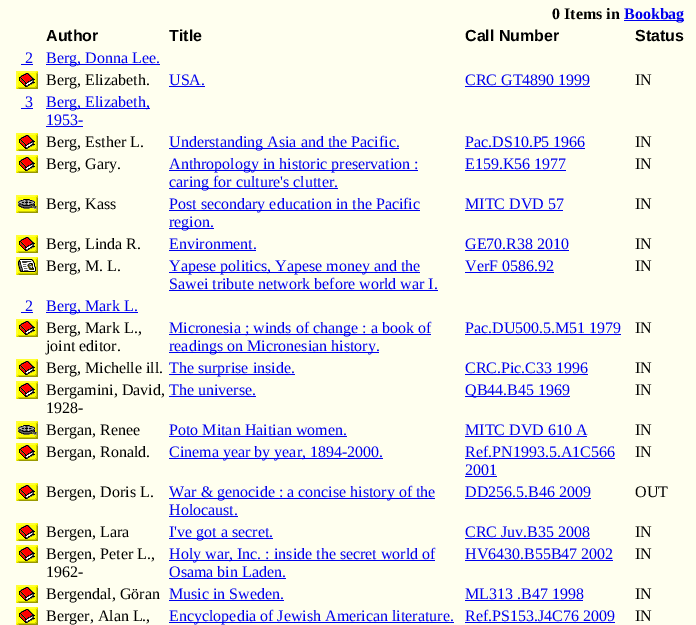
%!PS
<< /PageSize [696 625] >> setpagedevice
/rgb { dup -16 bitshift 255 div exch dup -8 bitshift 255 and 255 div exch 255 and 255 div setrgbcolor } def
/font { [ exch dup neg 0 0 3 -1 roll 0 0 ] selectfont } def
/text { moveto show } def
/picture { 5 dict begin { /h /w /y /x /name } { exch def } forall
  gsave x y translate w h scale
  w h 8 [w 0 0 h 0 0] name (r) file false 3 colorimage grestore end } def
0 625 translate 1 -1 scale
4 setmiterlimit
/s1 { /LiberationSerif-Bold 16 font 16#000000 rgb } def
/s2 { /LiberationSerif-Bold 16 font 16#0000EE rgb } def
/s3 { /LiberationSans-Bold 16 font 16#000000 rgb } def
/s4 { /LiberationSerif-Regular 16 font 16#0000EE rgb } def
/s5 { /LiberationSerif-Regular 16 font 16#000000 rgb } def
16#FFFFEF rgb
0 0 696 625 rectfill
s1
(0 Items in) 552 19 text
16#0000EE rgb
624 20 60 1 rectfill
(Bookbag) 624 19 text
s3
(Author) 46 41 text
(Title) 169 41 text
(Call Number) 465 41 text
(Status) 635 41 text
s4
(2) 25 63 text
21 64 12 1 rectfill
46 64 114 1 rectfill
(Berg, Donna Lee.) 46 63 text
(pic1.raw) 16 71 22 18 picture
s5
(Berg, Elizabeth.) 46 85 text
s4
(USA.) 169 85 text
169 86 36 1 rectfill
(CRC GT4890 1999) 465 85 text
465 86 125 1 rectfill
s5
(IN) 635 85 text
s4
(3) 25 107 text
21 108 12 1 rectfill
46 108 104 1 rectfill
(Berg, Elizabeth,) 46 107 text
(1953-) 46 125 text
46 126 37 1 rectfill
(pic1.raw) 16 133 22 18 picture
s5
(Berg, Esther L.) 46 147 text
16#0000EE rgb
169 148 230 1 rectfill
(Understanding Asia and the Pacific.) 169 147 text
(Pac.DS10.P5 1966) 465 147 text
465 148 120 1 rectfill
s5
(IN) 635 147 text
(pic1.raw) 16 155 22 18 picture
(Berg, Gary.) 46 169 text
16#0000EE rgb
169 170 249 1 rectfill
(Anthropology in historic preservation :) 169 169 text
169 188 169 1 rectfill
(caring for culture's clutter.) 169 187 text
(E159.K56 1977) 465 169 text
465 170 101 1 rectfill
s5
(IN) 635 169 text
(pic2.raw) 16 195 22 18 picture
(Berg, Kass) 46 209 text
16#0000EE rgb
169 210 251 1 rectfill
(Post secondary education in the Pacific) 169 209 text
169 228 45 1 rectfill
(region.) 169 227 text
(MITC DVD 57) 465 209 text
465 210 98 1 rectfill
s5
(IN) 635 209 text
(pic1.raw) 16 235 22 18 picture
(Berg, Linda R.) 46 249 text
s4
(Environment.) 169 249 text
169 250 87 1 rectfill
(GE70.R38 2010) 465 249 text
465 250 104 1 rectfill
s5
(IN) 635 249 text
(pic3.raw) 16 257 22 18 picture
(Berg, M. L.) 46 271 text
16#0000EE rgb
169 272 251 1 rectfill
(Yapese politics, Yapese money and the) 169 271 text
(Sawei tribute network before world war I.) 169 289 text
169 290 269 1 rectfill
(VerF 0586.92) 465 271 text
465 272 89 1 rectfill
s5
(IN) 635 271 text
s4
(2) 25 311 text
21 312 12 1 rectfill
46 312 92 1 rectfill
(Berg, Mark L.) 46 311 text
(pic1.raw) 16 319 22 18 picture
s5
(Berg, Mark L.,) 46 333 text
(joint editor.) 46 351 text
16#0000EE rgb
169 334 262 1 rectfill
(Micronesia ; winds of change : a book of) 169 333 text
169 352 210 1 rectfill
(readings on Micronesian history.) 169 351 text
(Pac.DU500.5.M51 1979) 465 333 text
465 334 156 1 rectfill
s5
(IN) 635 333 text
(pic1.raw) 16 359 22 18 picture
(Berg, Michelle ill.) 46 373 text
16#0000EE rgb
169 374 126 1 rectfill
(The surprise inside.) 169 373 text
(CRC.Pic.C33 1996) 465 373 text
465 374 123 1 rectfill
s5
(IN) 635 373 text
(pic1.raw) 16 381 22 18 picture
(Bergamini, David,) 46 395 text
(1928-) 46 413 text
s4
(The universe.) 169 395 text
169 396 87 1 rectfill
465 396 105 1 rectfill
(QB44.B45 1969) 465 395 text
s5
(IN) 635 395 text
(pic2.raw) 16 421 22 18 picture
(Bergan, Renee) 46 435 text
s4
(Poto Mitan Haitian women.) 169 435 text
169 436 178 1 rectfill
(MITC DVD 610 A) 465 435 text
465 436 122 1 rectfill
s5
(IN) 635 435 text
(pic1.raw) 16 443 22 18 picture
(Bergan, Ronald.) 46 457 text
16#0000EE rgb
169 458 214 1 rectfill
(Cinema year by year, 1894-2000.) 169 457 text
(Ref.PN1993.5.A1C566) 465 457 text
465 458 150 1 rectfill
(2001) 465 475 text
465 476 32 1 rectfill
s5
(IN) 635 457 text
(pic1.raw) 16 483 22 18 picture
(Bergen, Doris L.) 46 497 text
16#0000EE rgb
169 498 266 1 rectfill
(War & genocide : a concise history of the) 169 497 text
(Holocaust.) 169 515 text
169 516 69 1 rectfill
(DD256.5.B46 2009) 465 497 text
465 498 126 1 rectfill
s5
(OUT) 635 497 text
(pic1.raw) 16 523 22 18 picture
(Bergen, Lara) 46 537 text
16#0000EE rgb
169 538 104 1 rectfill
(I've got a secret.) 169 537 text
(CRC Juv.B35 2008) 465 537 text
465 538 125 1 rectfill
s5
(IN) 635 537 text
(pic1.raw) 16 545 22 18 picture
(Bergen, Peter L.,) 46 559 text
(1962-) 46 577 text
16#0000EE rgb
169 560 266 1 rectfill
(Holy war, Inc. : inside the secret world of) 169 559 text
(Osama bin Laden.) 169 577 text
169 578 117 1 rectfill
(HV6430.B55B47 2002) 465 559 text
465 560 148 1 rectfill
s5
(IN) 635 559 text
(pic1.raw) 16 585 22 18 picture
(Bergendal, Göran) 46 599 text
s4
(Music in Sweden.) 169 599 text
169 600 115 1 rectfill
(ML313 .B47 1998) 465 599 text
465 600 118 1 rectfill
s5
(IN) 635 599 text
(pic1.raw) 16 607 22 18 picture
(Berger, Alan L.,) 46 621 text
16#0000EE rgb
169 622 285 1 rectfill
(Encyclopedia of Jewish American literature.) 169 621 text
(Ref.PS153.J4C76 2009) 465 621 text
465 622 150 1 rectfill
s5
(IN) 635 621 text
showpage
